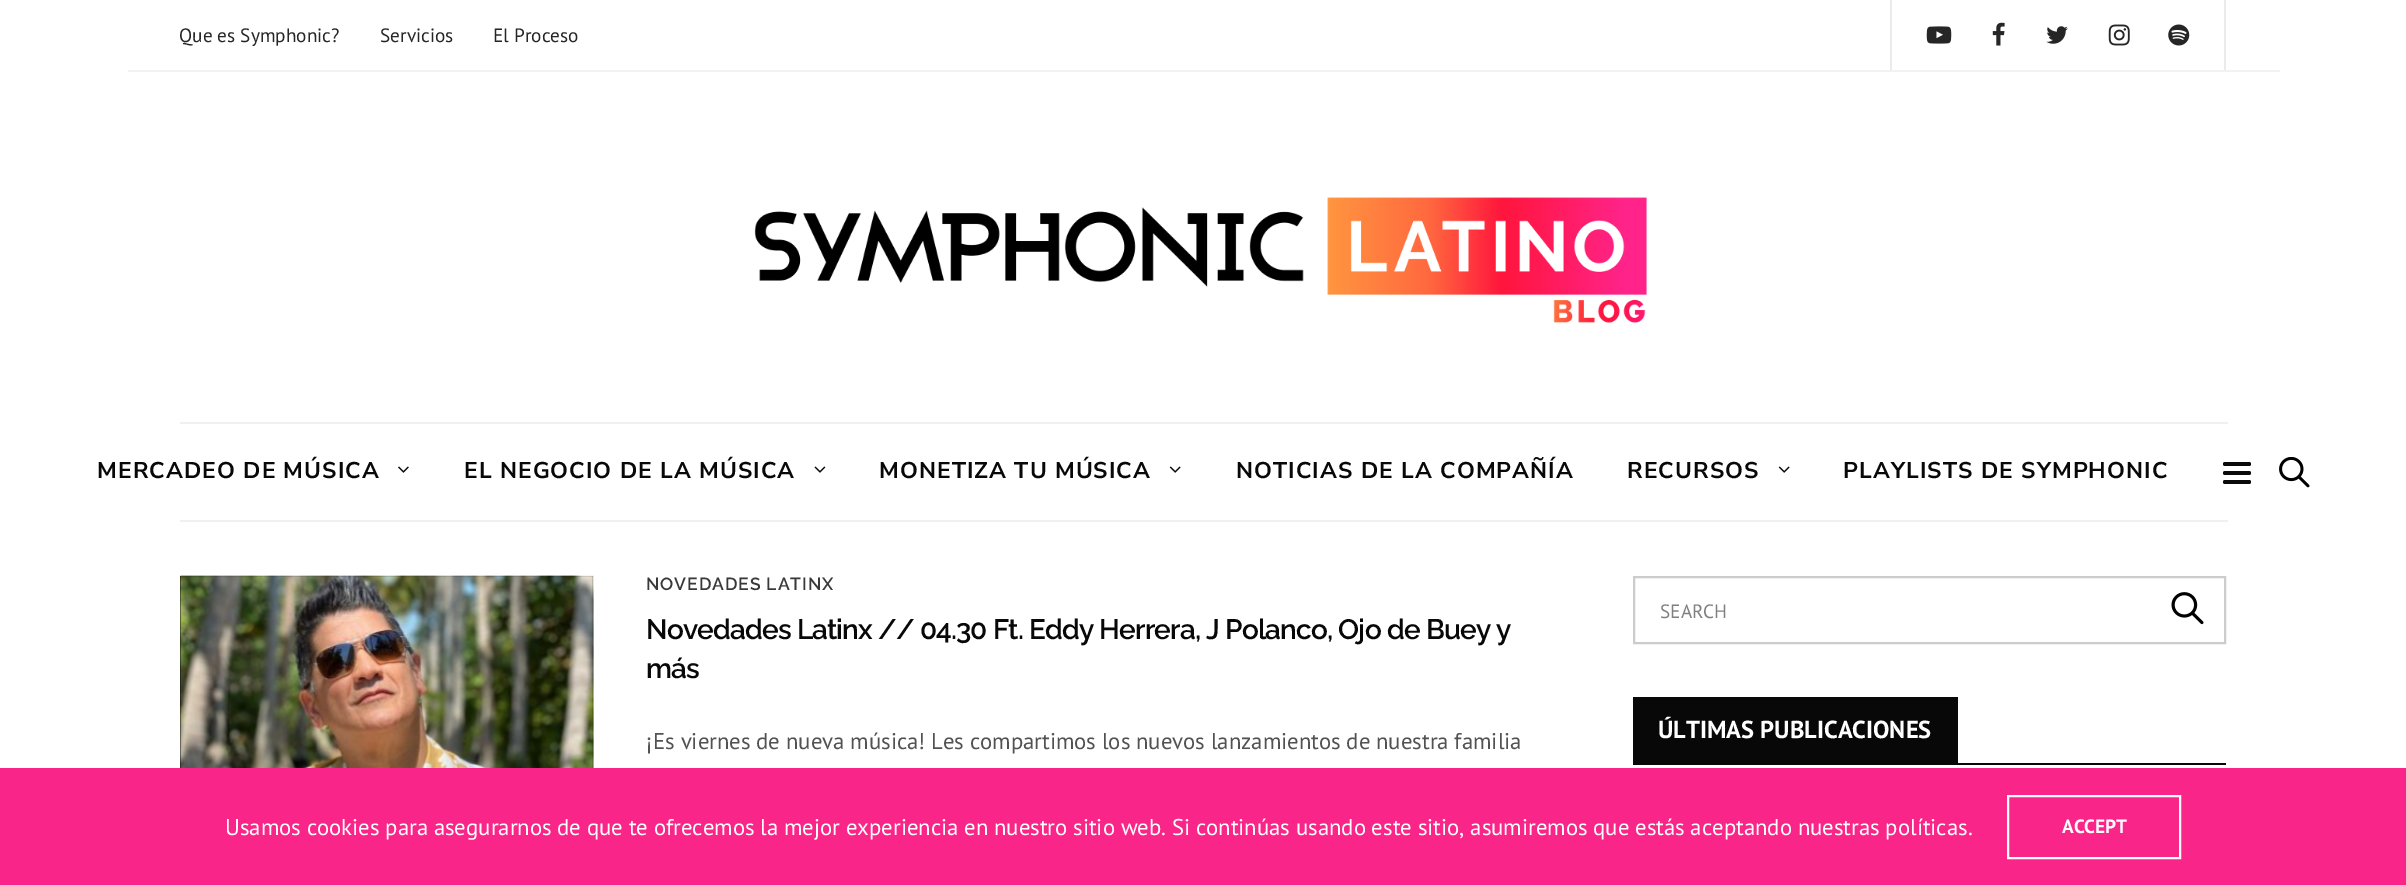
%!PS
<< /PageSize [2406 885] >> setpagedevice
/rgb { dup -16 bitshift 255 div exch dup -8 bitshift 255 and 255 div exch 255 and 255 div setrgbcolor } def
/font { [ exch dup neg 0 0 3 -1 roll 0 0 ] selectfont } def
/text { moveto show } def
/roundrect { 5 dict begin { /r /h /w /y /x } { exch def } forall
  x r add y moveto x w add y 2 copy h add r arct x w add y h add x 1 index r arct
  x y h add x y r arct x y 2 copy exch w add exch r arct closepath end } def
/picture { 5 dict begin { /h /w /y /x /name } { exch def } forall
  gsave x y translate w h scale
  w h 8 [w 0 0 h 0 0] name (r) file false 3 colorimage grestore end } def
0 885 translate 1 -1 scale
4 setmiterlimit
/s1 { /PTSans-Regular 19.25 font 16#262626 rgb } def
/s2 { /PTSans-Regular 19.25 font 16#808080 rgb } def
/s3 { /PTSans-Bold 24.5 font 16#FFFFFF rgb } def
/s4 { /PTSans-Bold 19.25 font 16#FFFFFF rgb } def
16#FFFFFF rgb
0 0 2406 885 rectfill
16#F2F2F2 rgb
128 70 2152 2 rectfill
s1
(Que es Symphonic?) 179 42 text
(Servicios) 380 42 text
(El Proceso) 493 42 text
16#EBEBEB rgb
2224 0 2 70 rectfill
1890 0 2 70 rectfill
(pic1.raw) 1926 26 26 18 picture
(pic2.raw) 1992 22 13 24 picture
(pic3.raw) 2046 26 22 18 picture
(pic4.raw) 2108 24 22 22 picture
(pic5.raw) 2168 24 22 22 picture
(pic6.raw) 754 197 893 126 picture
16#F0F0F0 rgb
180 422 2048 2 rectfill
180 520 2048 2 rectfill
/NunitoSans-Bold 22.75 font
16#080808 rgb
97 478 moveto 1.1 0 (MERCADEO DE MÚSICA) ashow
(pic7.raw) 398 466 11 7 picture
464 478 moveto 1.1 0 (EL NEGOCIO DE LA MÚSICA) ashow
(pic8.raw) 814 466 12 7 picture
879 478 moveto 1.1 0 (MONETIZA TU MÚSICA) ashow
(pic9.raw) 1169 466 12 7 picture
1236 478 moveto 1.1 0 (NOTICIAS DE LA COMPAÑÍA) ashow
1627 478 moveto 1.1 0 (RECURSOS) ashow
(pic9.raw) 1778 466 12 7 picture
1843 478 moveto 1.1 0 (PLAYLISTS DE SYMPHONIC) ashow
16#0A0A0A rgb
2223 462 28 4 2 roundrect fill
2223 471 28 4 2 roundrect fill
2223 480 28 4 2 roundrect fill
(pic10.raw) 2279 457 31 31 picture
16#080808 rgb
180 576 413 192 rectfill
(pic11.raw) 180 575 414 193 picture
/Raleway-SemiBold 17.5 font
16#393939 rgb
646 590 moveto 0.9 0 (NOVEDADES LATINX) ashow
/Raleway-SemiBold 28 font
16#080808 rgb
646 639 moveto -0.85 0 (Novedades Latinx // 04.30 Ft. Eddy Herrera, J Polanco, Ojo de Buey y) ashow
646 678 moveto -0.85 0 (más) ashow
/PTSans-Regular 22.75 font
16#525252 rgb
646 749 moveto -0.25 0 32 (¡Es viernes de nueva música! Les compartimos los nuevos lanzamientos de nuestra familia) widthshow
16#CCCCCC rgb
2 setlinewidth
1634 577 591 66 rectstroke
s2
(SEARCH) 1660 618 text
(pic12.raw) 2171 592 33 33 picture
16#080808 rgb
1633 763 593 2 rectfill
1633 697 325 66 rectfill
s3
(ÚLTIMAS PUBLICACIONES) 1658 738 text
16#F92588 rgb
0 768 2406 117 rectfill
/PTSans-Regular 22.75 font
16#FFFFFF rgb
225 835 moveto -0.3 0 32 (Usamos cookies para asegurarnos de que te ofrecemos la mejor experiencia en nuestro sitio web. Si continúas usando este sitio, asumiremos que estás aceptando nuestras políticas.) widthshow
2008 796 172 62 rectstroke
s4
(ACCEPT) 2062 833 text
showpage
